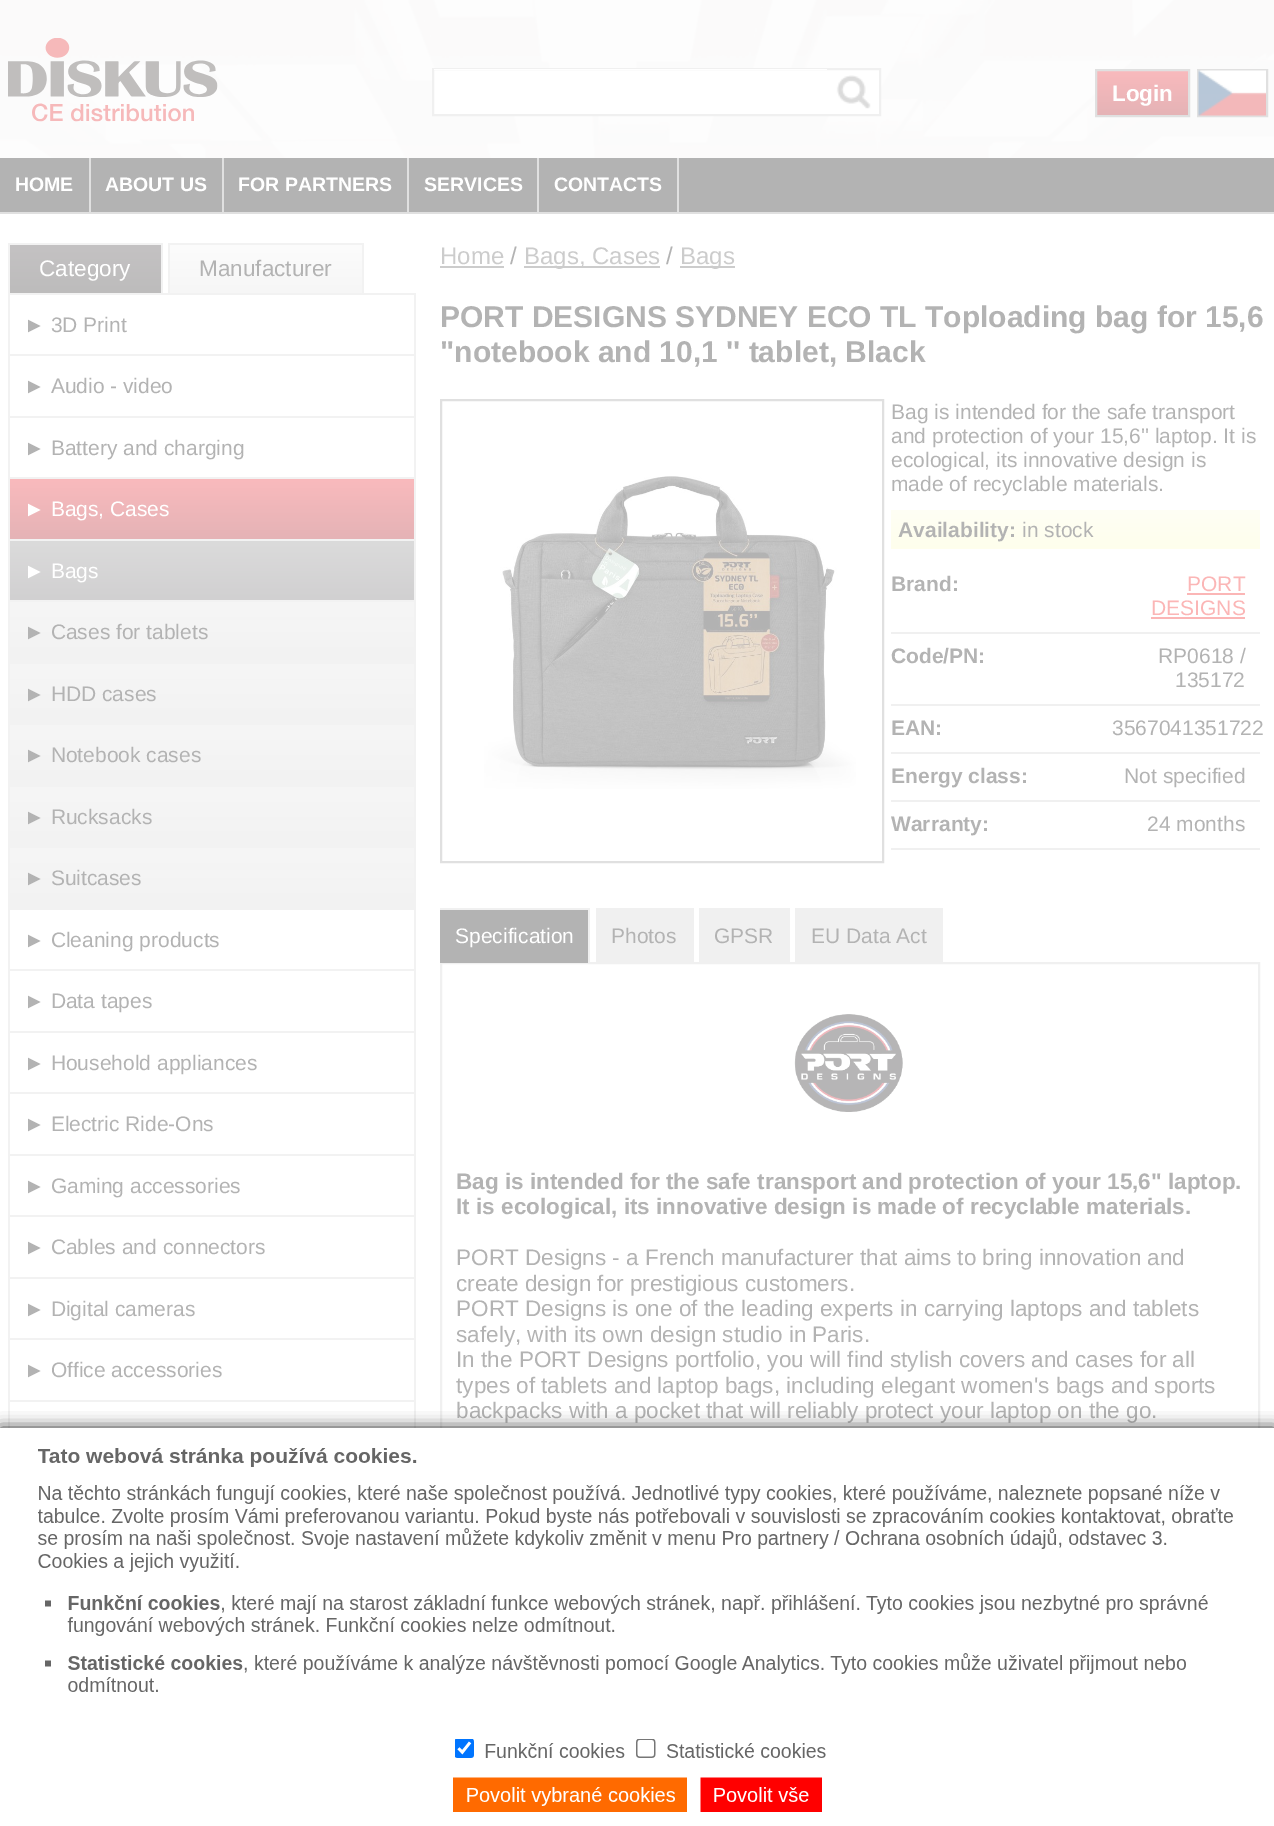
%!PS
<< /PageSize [1274 1826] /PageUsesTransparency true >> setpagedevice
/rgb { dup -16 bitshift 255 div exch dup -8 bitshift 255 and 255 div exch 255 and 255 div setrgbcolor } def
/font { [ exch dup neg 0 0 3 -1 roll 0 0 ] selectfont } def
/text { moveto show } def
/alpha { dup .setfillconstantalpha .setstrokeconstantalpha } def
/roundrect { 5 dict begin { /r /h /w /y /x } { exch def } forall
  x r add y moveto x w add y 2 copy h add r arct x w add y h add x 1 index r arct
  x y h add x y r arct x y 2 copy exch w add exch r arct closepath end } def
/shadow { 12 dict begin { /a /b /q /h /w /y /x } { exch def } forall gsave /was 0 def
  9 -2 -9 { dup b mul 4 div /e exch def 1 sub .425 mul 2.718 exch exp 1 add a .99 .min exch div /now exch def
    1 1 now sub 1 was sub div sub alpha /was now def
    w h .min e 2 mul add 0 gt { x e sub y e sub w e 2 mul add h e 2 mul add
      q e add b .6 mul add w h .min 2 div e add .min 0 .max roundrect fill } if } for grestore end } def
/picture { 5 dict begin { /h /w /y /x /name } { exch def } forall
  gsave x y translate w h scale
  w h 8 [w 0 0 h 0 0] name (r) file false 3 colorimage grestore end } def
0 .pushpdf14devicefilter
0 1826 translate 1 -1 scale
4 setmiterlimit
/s1 { /LiberationSans-Bold 22.5 font 16#FFFFFF rgb } def
/s2 { /LiberationSans-Bold 19.5 font 16#FFFFFF rgb } def
/s3 { /LiberationSans-Regular 22.5 font 16#FFFFFF rgb } def
/s4 { /LiberationSans-Regular 22.5 font 16#B3B3B3 rgb } def
/s5 { /LiberationSans-Regular 21 font 16#B3B3B3 rgb } def
/s6 { /LiberationSans-Regular 21 font 16#FFFFFF rgb } def
/s7 { /LiberationSans-Regular 24 font 16#CCCCCC rgb } def
/s8 { /LiberationSans-Regular 24 font 16#B3B3B3 rgb } def
/s9 { /LiberationSans-Bold 30 font 16#B3B3B3 rgb } def
/s10 { /LiberationSans-Bold 21 font 16#B3B3B3 rgb } def
/s11 { /LiberationSans-Regular 21 font 16#FBB6B6 rgb } def
/s12 { /LiberationSans-Bold 22.5 font 16#B3B3B3 rgb } def
16#FFFFFF rgb
0 0 1274 1826 rectfill
(pic1.raw) 0 0 1274 158 picture
(pic2.raw) 8 38 210 84 picture
433 69 moveto 880 69 lineto 880 115 lineto 433 115 lineto closepath gsave fill grestore
16#F0F0F0 rgb
2 setlinewidth
stroke
16#FFFFFF rgb
434 69 393 1 rectfill
(pic3.raw) 836 75 35 34 picture
gsave 1097 71 moveto 1188 71 lineto 1188 115 lineto 1097 115 lineto closepath clip newpath
<< /ShadingType 2 /ColorSpace /DeviceRGB /Coords [1142 71 1142 116] /Extend [true true] /Function << /FunctionType 2 /Domain [0 1] /C0 [0.976 0.729 0.741] /C1 [0.898 0.702 0.714] /N 1 >> >> shfill grestore
16#E0E0E0 rgb
1096 70 93 46 rectstroke
s1
(Login) 1112 101 text
16#E0E0E0 rgb
1198 70 69 46 rectstroke
(pic4.raw) 1198 70 68 46 picture
16#B3B3B3 rgb
0 158 1274 54 rectfill
16#E0E0E0 rgb
0 212 1274 2 rectfill
89 158 2 54 rectfill
s2
(HOME) 15 191 text
16#E0E0E0 rgb
222 158 2 54 rectfill
s2
(ABOUT US) 105 191 text
16#E0E0E0 rgb
407 158 2 54 rectfill
s2
(FOR PARTNERS) 238 191 text
16#E0E0E0 rgb
537 158 2 54 rectfill
s2
(SERVICES) 424 191 text
16#E0E0E0 rgb
677 158 2 54 rectfill
s2
(CONTACTS) 554 191 text
gsave 10 245 moveto 161 245 lineto 161 293 lineto 10 293 lineto closepath clip newpath
<< /ShadingType 2 /ColorSpace /DeviceRGB /Coords [85 245 85 293] /Extend [true true] /Function << /FunctionType 2 /Domain [0 1] /C0 [0.769 0.761 0.765] /C1 [0.741 0.737 0.737] /N 1 >> >> shfill grestore
16#F2F2F2 rgb
8 243 154 2 rectfill
161 243 2 50 rectfill
8 243 2 50 rectfill
s3
(Category) 39 276 text
gsave 170 245 moveto 362 245 lineto 362 293 lineto 170 293 lineto closepath clip newpath
<< /ShadingType 2 /ColorSpace /DeviceRGB /Coords [266 245 266 293] /Extend [true true] /Function << /FunctionType 2 /Domain [0 1] /C0 [0.988 0.988 0.988] /C1 [0.965 0.965 0.965] /N 1 >> >> shfill grestore
16#F2F2F2 rgb
168 243 195 2 rectfill
362 243 2 50 rectfill
168 243 2 50 rectfill
s4
(Manufacturer) 199 276 text
16#F2F2F2 rgb
8 293 408 2 rectfill
414 293 2 61 rectfill
8 293 2 61 rectfill
s5
(► 3D Print) 24 332 text
16#F2F2F2 rgb
8 354 408 2 rectfill
414 354 2 62 rectfill
8 354 2 62 rectfill
s5
(► Audio - video) 24 393 text
16#F2F2F2 rgb
8 416 408 2 rectfill
414 416 2 61 rectfill
8 416 2 61 rectfill
s5
(► Battery and charging) 24 455 text
gsave 10 479 moveto 414 479 lineto 414 539 lineto 10 539 lineto closepath clip newpath
<< /ShadingType 2 /ColorSpace /DeviceRGB /Coords [212 479 212 539] /Extend [true true] /Function << /FunctionType 2 /Domain [0 1] /C0 [0.976 0.729 0.741] /C1 [0.898 0.702 0.714] /N 1 >> >> shfill grestore
16#F2F2F2 rgb
8 477 408 2 rectfill
414 477 2 62 rectfill
8 477 2 62 rectfill
s6
(► Bags, Cases) 24 516 text
gsave 10 541 moveto 414 541 lineto 414 600 lineto 10 600 lineto closepath clip newpath
<< /ShadingType 2 /ColorSpace /DeviceRGB /Coords [212 540 212 600] /Extend [true true] /Function << /FunctionType 2 /Domain [0 1] /C0 [0.859 0.859 0.859] /C1 [0.82 0.816 0.82] /N 1 >> >> shfill grestore
16#F2F2F2 rgb
8 539 408 2 rectfill
414 539 2 61 rectfill
8 539 2 61 rectfill
s6
(► Bags) 24 578 text
gsave 8 600 moveto 416 600 lineto 416 602 lineto 8 602 lineto closepath clip newpath
<< /ShadingType 2 /ColorSpace /DeviceRGB /Coords [212 542 212 602] /Extend [true true] /Function << /FunctionType 2 /Domain [0 1] /C0 [0.965 0.965 0.965] /C1 [0.949 0.949 0.949] /N 1 >> >> shfill grestore
gsave 10 602 moveto 414 602 lineto 414 662 lineto 10 662 lineto closepath clip newpath
<< /ShadingType 2 /ColorSpace /DeviceRGB /Coords [212 602 212 662] /Extend [true true] /Function << /FunctionType 2 /Domain [0 1] /C0 [0.965 0.965 0.965] /C1 [0.949 0.949 0.949] /N 1 >> >> shfill grestore
16#F2F2F2 rgb
414 600 2 62 rectfill
8 600 2 62 rectfill
s5
(► Cases for tablets) 24 639 text
gsave 10 664 moveto 414 664 lineto 414 723 lineto 10 723 lineto closepath clip newpath
<< /ShadingType 2 /ColorSpace /DeviceRGB /Coords [212 663 212 723] /Extend [true true] /Function << /FunctionType 2 /Domain [0 1] /C0 [0.965 0.965 0.965] /C1 [0.949 0.949 0.949] /N 1 >> >> shfill grestore
16#F2F2F2 rgb
8 662 408 2 rectfill
414 662 2 61 rectfill
8 662 2 61 rectfill
s5
(► HDD cases) 24 701 text
gsave 8 723 moveto 416 723 lineto 416 725 lineto 8 725 lineto closepath clip newpath
<< /ShadingType 2 /ColorSpace /DeviceRGB /Coords [212 665 212 725] /Extend [true true] /Function << /FunctionType 2 /Domain [0 1] /C0 [0.965 0.965 0.965] /C1 [0.949 0.949 0.949] /N 1 >> >> shfill grestore
gsave 10 725 moveto 414 725 lineto 414 785 lineto 10 785 lineto closepath clip newpath
<< /ShadingType 2 /ColorSpace /DeviceRGB /Coords [212 725 212 785] /Extend [true true] /Function << /FunctionType 2 /Domain [0 1] /C0 [0.965 0.965 0.965] /C1 [0.949 0.949 0.949] /N 1 >> >> shfill grestore
16#F2F2F2 rgb
414 723 2 62 rectfill
8 723 2 62 rectfill
s5
(► Notebook cases) 24 762 text
gsave 10 787 moveto 414 787 lineto 414 846 lineto 10 846 lineto closepath clip newpath
<< /ShadingType 2 /ColorSpace /DeviceRGB /Coords [212 786 212 846] /Extend [true true] /Function << /FunctionType 2 /Domain [0 1] /C0 [0.965 0.965 0.965] /C1 [0.949 0.949 0.949] /N 1 >> >> shfill grestore
16#F2F2F2 rgb
8 785 408 2 rectfill
414 785 2 61 rectfill
8 785 2 61 rectfill
s5
(► Rucksacks) 24 824 text
gsave 8 846 moveto 416 846 lineto 416 848 lineto 8 848 lineto closepath clip newpath
<< /ShadingType 2 /ColorSpace /DeviceRGB /Coords [212 788 212 848] /Extend [true true] /Function << /FunctionType 2 /Domain [0 1] /C0 [0.965 0.965 0.965] /C1 [0.949 0.949 0.949] /N 1 >> >> shfill grestore
gsave 10 848 moveto 414 848 lineto 414 908 lineto 10 908 lineto closepath clip newpath
<< /ShadingType 2 /ColorSpace /DeviceRGB /Coords [212 848 212 908] /Extend [true true] /Function << /FunctionType 2 /Domain [0 1] /C0 [0.965 0.965 0.965] /C1 [0.949 0.949 0.949] /N 1 >> >> shfill grestore
16#F2F2F2 rgb
414 846 2 62 rectfill
8 846 2 62 rectfill
s5
(► Suitcases) 24 885 text
16#F2F2F2 rgb
8 908 408 2 rectfill
414 908 2 61 rectfill
8 908 2 61 rectfill
s5
(► Cleaning products) 24 947 text
16#F2F2F2 rgb
8 969 408 2 rectfill
414 969 2 62 rectfill
8 969 2 62 rectfill
s5
(► Data tapes) 24 1008 text
16#F2F2F2 rgb
8 1031 408 2 rectfill
414 1031 2 61 rectfill
8 1031 2 61 rectfill
s5
(► Household appliances) 24 1070 text
16#F2F2F2 rgb
8 1092 408 2 rectfill
414 1092 2 62 rectfill
8 1092 2 62 rectfill
s5
(► Electric Ride-Ons) 24 1131 text
16#F2F2F2 rgb
8 1154 408 2 rectfill
414 1154 2 61 rectfill
8 1154 2 61 rectfill
s5
(► Gaming accessories) 24 1193 text
16#F2F2F2 rgb
8 1215 408 2 rectfill
414 1215 2 62 rectfill
8 1215 2 62 rectfill
s5
(► Cables and connectors) 24 1254 text
16#F2F2F2 rgb
8 1277 408 2 rectfill
414 1277 2 61 rectfill
8 1277 2 61 rectfill
s5
(► Digital cameras) 24 1316 text
16#F2F2F2 rgb
8 1338 408 2 rectfill
414 1338 2 62 rectfill
8 1338 2 62 rectfill
s5
(► Office accessories) 24 1377 text
16#F2F2F2 rgb
8 1400 408 2 rectfill
414 1400 2 28 rectfill
8 1400 2 28 rectfill
s7
(Home) 440 264 text
440 266 64 2 rectfill
s8
(/) 510 264 text
16#CCCCCC rgb
524 266 136 2 rectfill
(Bags, Cases) 524 264 text
s8
(/) 666 264 text
16#CCCCCC rgb
680 266 55 2 rectfill
(Bags) 680 264 text
s9
(PORT DESIGNS SYDNEY ECO TL Toploading bag for 15,6) 440 327 text
("notebook and 10,1 '' tablet, Black) 440 362 text
16#E0E0E0 rgb
441 400 442 462 rectstroke
(pic5.raw) 484 476 372 313 picture
s5
(Bag is intended for the safe transport) 891 419 text
(and protection of your 15,6'' laptop. It is) 891 443 text
(ecological, its innovative design is) 891 467 text
(made of recyclable materials.) 891 491 text
gsave 891 510 moveto 1260 510 lineto 1260 549 lineto 891 549 lineto closepath clip newpath
<< /ShadingType 2 /ColorSpace /DeviceRGB /Coords [1076 510 1076 549] /Extend [true true] /Function << /FunctionType 2 /Domain [0 1] /C0 [0.996 0.996 0.961] /C1 [1 0.996 0.925] /N 1 >> >> shfill grestore
s10
(Availability:) 898 537 text
s5
(in stock) 1022 537 text
s10
(Brand:) 891 591 text
s11
(PORT) 1187 591 text
1187 593 58 2 rectfill
(DESIGNS) 1151 615 text
1151 617 94 2 rectfill
16#F0F0F0 rgb
891 632 369 2 rectfill
s10
(Code/PN:) 891 663 text
s5
(RP0618 /) 1158 663 text
(135172) 1175 687 text
16#F0F0F0 rgb
891 704 369 2 rectfill
s10
(EAN:) 891 735 text
s5
(3567041351722) 1112 735 text
16#F0F0F0 rgb
891 752 369 2 rectfill
s10
(Energy class:) 891 783 text
s5
(Not specified) 1124 783 text
16#F0F0F0 rgb
891 800 369 2 rectfill
s10
(Warranty:) 891 831 text
s5
(24 months) 1147 831 text
16#F0F0F0 rgb
891 848 369 2 rectfill
441 963 818 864 rectstroke
16#B3B3B3 rgb
440 910 148 53 rectfill
16#F0F0F0 rgb
440 908 150 2 rectfill
588 908 2 55 rectfill
s6
(Specification) 455 943 text
16#F0F0F0 rgb
596 908 96 54 rectfill
692 908 2 55 rectfill
s5
(Photos) 611 943 text
16#F0F0F0 rgb
699 908 89 54 rectfill
788 908 2 55 rectfill
s5
(GPSR) 714 943 text
16#F0F0F0 rgb
795 908 146 54 rectfill
941 908 2 55 rectfill
s5
(EU Data Act) 811 943 text
(pic6.raw) 794 1014 109 98 picture
s12
(Bag is intended for the safe transport and protection of your 15,6" laptop.) 456 1189 text
(It is ecological, its innovative design is made of recyclable materials.) 456 1214 text
s4
(PORT Designs - a French manufacturer that aims to bring innovation and) 456 1265 text
(create design for prestigious customers.) 456 1291 text
(PORT Designs is one of the leading experts in carrying laptops and tablets) 456 1316 text
(safely, with its own design studio in Paris.) 456 1342 text
(In the PORT Designs portfolio, you will find stylish covers and cases for all) 456 1367 text
(types of tablets and laptop bags, including elegant women's bags and sports) 456 1393 text
(backpacks with a pocket that will reliably protect your laptop on the go.) 456 1418 text
16#000000 rgb
0 1428 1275 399 0 7.5 0.8 shadow
16#FFFFFF rgb
0 1428 1274 398 rectfill
(pic7.raw) 38 1448 1195 364 picture
.poppdf14devicefilter showpage
